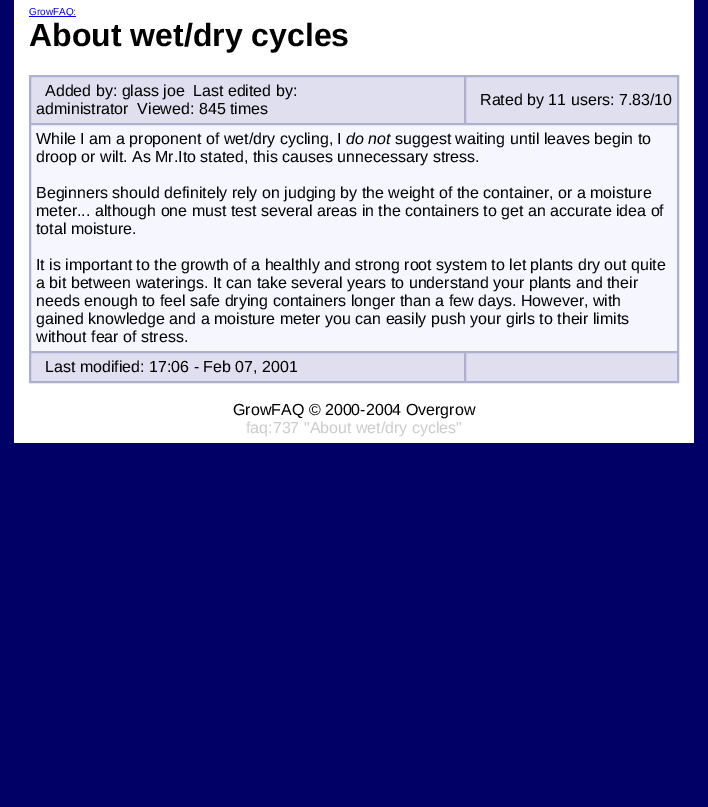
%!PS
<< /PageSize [708 807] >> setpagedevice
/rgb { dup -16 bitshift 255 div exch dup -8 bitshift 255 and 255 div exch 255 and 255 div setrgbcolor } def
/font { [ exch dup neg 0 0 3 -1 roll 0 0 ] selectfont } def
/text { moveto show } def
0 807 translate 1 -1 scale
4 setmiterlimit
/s1 { /LiberationSans-Regular 10 font 16#0000EE rgb } def
/s2 { /LiberationSans-Bold 32 font 16#000000 rgb } def
/s3 { /LiberationSans-Regular 16 font 16#000000 rgb } def
/s4 { /LiberationSans-Italic 16 font 16#000000 rgb } def
/s5 { /LiberationSans-Regular 16 font 16#CCCCCC rgb } def
16#000066 rgb
0 0 708 807 rectfill
16#FFFFFF rgb
14 0 680 443 rectfill
16#0000EE rgb
29 16 47 1 rectfill
s1
(GrowFAQ:) 29 15 text
s2
(About wet/dry cycles) 29 46 text
16#AFAFCF rgb
29.5 75.5 649 307 rectstroke
16#DFDFEF rgb
30.5 76.5 moveto 464.5 76.5 lineto 464.5 123.5 lineto 30.5 123.5 lineto closepath gsave fill grestore
16#AFAFCF rgb
stroke
s3
(Added by: glass joe) 45 96 text
(Last edited by:) 193 96 text
(administrator  Viewed: 845 times) 36 114 text
16#DFDFEF rgb
465.5 76.5 moveto 677.5 76.5 lineto 677.5 123.5 lineto 465.5 123.5 lineto closepath gsave fill grestore
16#AFAFCF rgb
stroke
s3
(Rated by 11 users: 7.83/10) 480 105 text
16#F6F6FF rgb
30.5 124.5 moveto 677.5 124.5 lineto 677.5 351.5 lineto 30.5 351.5 lineto closepath gsave fill grestore
16#AFAFCF rgb
stroke
s3
(While I am a proponent of wet/dry cycling, I) 36 144 text
s4
(do not) 346 144 text
s3
(suggest waiting until leaves begin to) 395 144 text
(droop or wilt. As Mr.Ito stated, this causes unnecessary stress.) 36 162 text
(Beginners should definitely rely on judging by the weight of the container, or a moisture) 36 198 text
(meter... although one must test several areas in the containers to get an accurate idea of) 36 216 text
(total moisture.) 36 234 text
(It is important to the growth of a healthly and strong root system to let plants dry out quite) 36 270 text
(a bit between waterings. It can take several years to understand your plants and their) 36 288 text
(needs enough to feel safe drying containers longer than a few days. However, with) 36 306 text
(gained knowledge and a moisture meter you can easily push your girls to their limits) 36 324 text
(without fear of stress.) 36 342 text
16#DFDFEF rgb
30.5 352.5 moveto 464.5 352.5 lineto 464.5 381.5 lineto 30.5 381.5 lineto closepath gsave fill grestore
16#AFAFCF rgb
stroke
s3
(Last modified: 17:06 - Feb 07, 2001) 45 372 text
16#DFDFEF rgb
465.5 352.5 moveto 677.5 352.5 lineto 677.5 381.5 lineto 465.5 381.5 lineto closepath gsave fill grestore
16#AFAFCF rgb
stroke
s3
(GrowFAQ © 2000-2004 Overgrow) 233 415 text
s5
(faq:737 "About wet/dry cycles") 246 433 text
showpage
